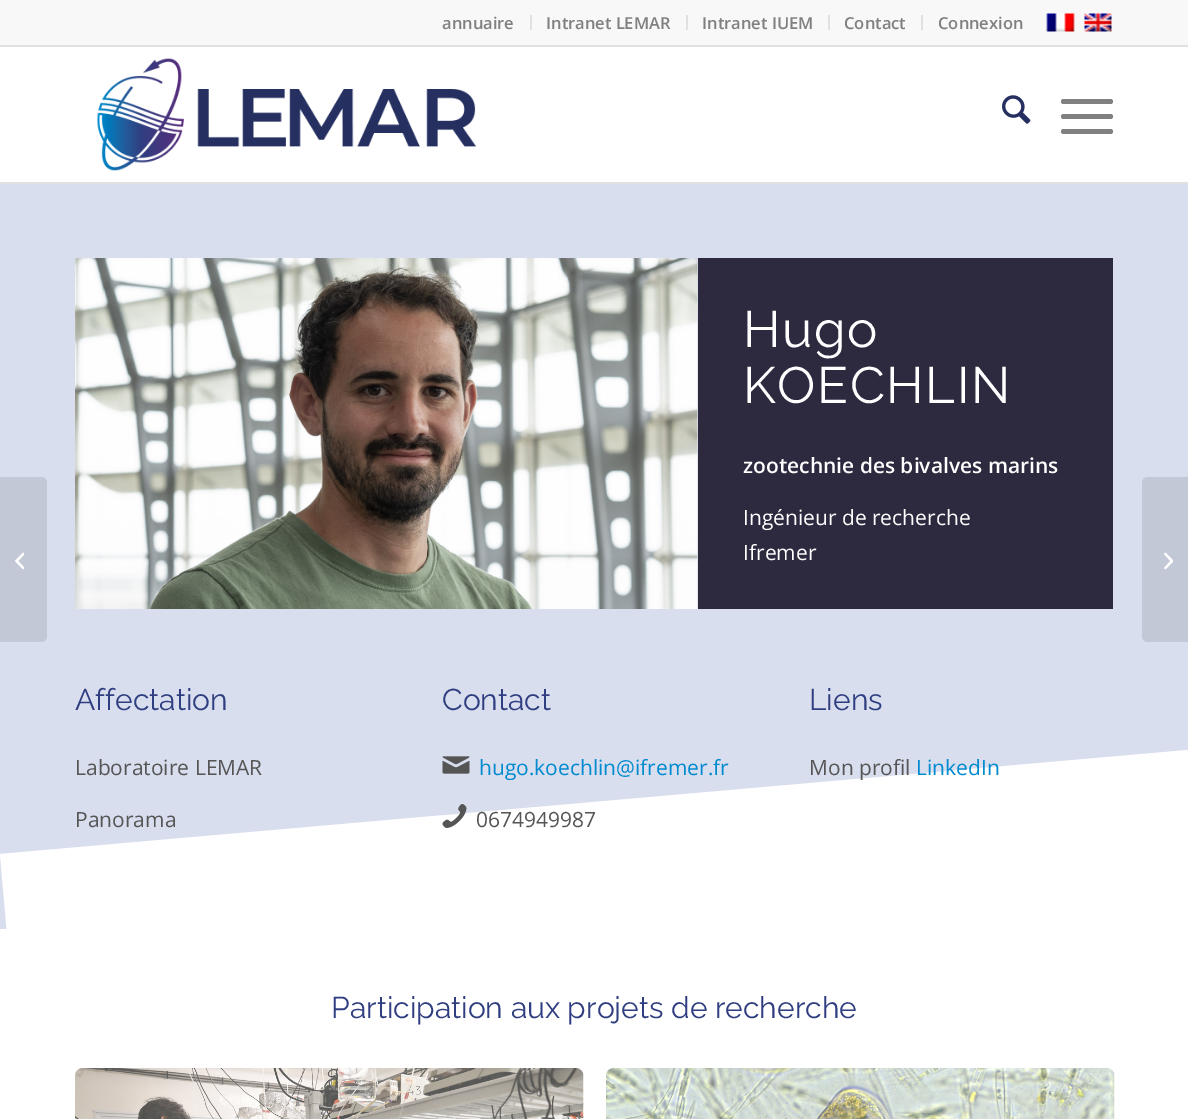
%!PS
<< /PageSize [1188 1119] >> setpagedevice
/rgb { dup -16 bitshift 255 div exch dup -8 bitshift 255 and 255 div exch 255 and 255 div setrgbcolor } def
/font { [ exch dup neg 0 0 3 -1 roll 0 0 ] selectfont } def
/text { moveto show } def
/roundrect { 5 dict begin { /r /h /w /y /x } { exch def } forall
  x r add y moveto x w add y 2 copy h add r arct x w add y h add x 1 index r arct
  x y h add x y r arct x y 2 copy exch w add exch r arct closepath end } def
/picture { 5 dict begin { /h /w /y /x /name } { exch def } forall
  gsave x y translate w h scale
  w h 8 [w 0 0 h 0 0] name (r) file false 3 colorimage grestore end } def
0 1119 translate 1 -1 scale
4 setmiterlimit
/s1 { /OpenSans-SemiBold 16.5 font 16#808080 rgb } def
/s2 { /OpenSans-SemiBold 21 font 16#FFFFFF rgb } def
/s3 { /OpenSans-Regular 21 font 16#FFFFFF rgb } def
/s4 { /Raleway-Thin 30 font 16#2F3E80 rgb } def
/s5 { /OpenSans-Regular 21 font 16#555555 rgb } def
/s6 { /OpenSans-Regular 21 font 16#008ACF rgb } def
16#FFFFFF rgb
0 0 1188 1119 rectfill
16#F8F8F8 rgb
0 0 1188 45 rectfill
16#E1E1E1 rgb
0 45 1188 2 rectfill
530 15 2 15 rectfill
s1
(annuaire) 442 29 text
16#E1E1E1 rgb
686 15 2 15 rectfill
s1
(Intranet LEMAR) 546 29 text
16#E1E1E1 rgb
828 15 2 15 rectfill
s1
(Intranet IUEM) 702 29 text
16#E1E1E1 rgb
921 15 2 15 rectfill
s1
(Contact) 844 29 text
(Connexion) 938 29 text
(pic1.raw) 1046 13 29 19 picture
(pic2.raw) 1084 13 28 19 picture
16#E1E1E1 rgb
0 182 1188 2 rectfill
(pic3.raw) 97 58 379 113 picture
(pic4.raw) 1002 95 29 29 picture
16#808080 rgb
1061 114 52 5 2.5 roundrect fill
1061 99 52 5 2.5 roundrect fill
1061 129 52 5 2.5 roundrect fill
16#D9DEEE rgb
0 184 1188 745 rectfill
16#C3C8D6 rgb
0 477 moveto 41 477 lineto 44.5 477 47 479.5 47 483 curveto 47 636 lineto 47 639.5 44.5 642 41 642 curveto 0 642 lineto closepath fill
(pic5.raw) 15 552 9 18 picture
(pic6.raw) 75 258 623 351 picture
16#2D2A40 rgb
698 258 415 351 rectfill
/Raleway-Thin 51 font
16#FFFFFF rgb
743 347 moveto 1.5 0 (Hugo) ashow
743 403 moveto 1.5 0 (KOECHLIN) ashow
s2
(zootechnie des bivalves marins) 743 473 text
s3
(Ingénieur de recherche) 743 525 text
(Ifremer) 743 560 text
s4
(Affectation) 75 710 text
gsave
0 479 1188 450 rectclip
16#FFFFFF rgb
0 854 moveto 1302 740 lineto 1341 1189 lineto 39 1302 lineto closepath fill
grestore
s5
(Laboratoire LEMAR) 75 775 text
(Panorama) 75 827 text
s4
(Contact) 442 710 text
(pic7.raw) 442 756 28 18 picture
s6
(hugo.koechlin@ifremer.fr) 479 775 text
(pic8.raw) 442 804 25 24 picture
s5
(0674949987) 476 827 text
s4
(Liens) 809 710 text
s5
(Mon profil) 809 775 text
s6
(LinkedIn) 916 775 text
s4
(Participation aux projets de recherche) 331 1018 text
(pic9.raw) 75 1068 509 51 picture
(pic10.raw) 606 1068 509 51 picture
16#C3C8D6 rgb
1148 477 moveto 1188 477 lineto 1188 642 lineto 1148 642 lineto 1144.5 642 1142 639.5 1142 636 curveto 1142 483 lineto 1142 479.5 1144.5 477 1148 477 curveto closepath fill
(pic11.raw) 1164 552 9 18 picture
showpage
